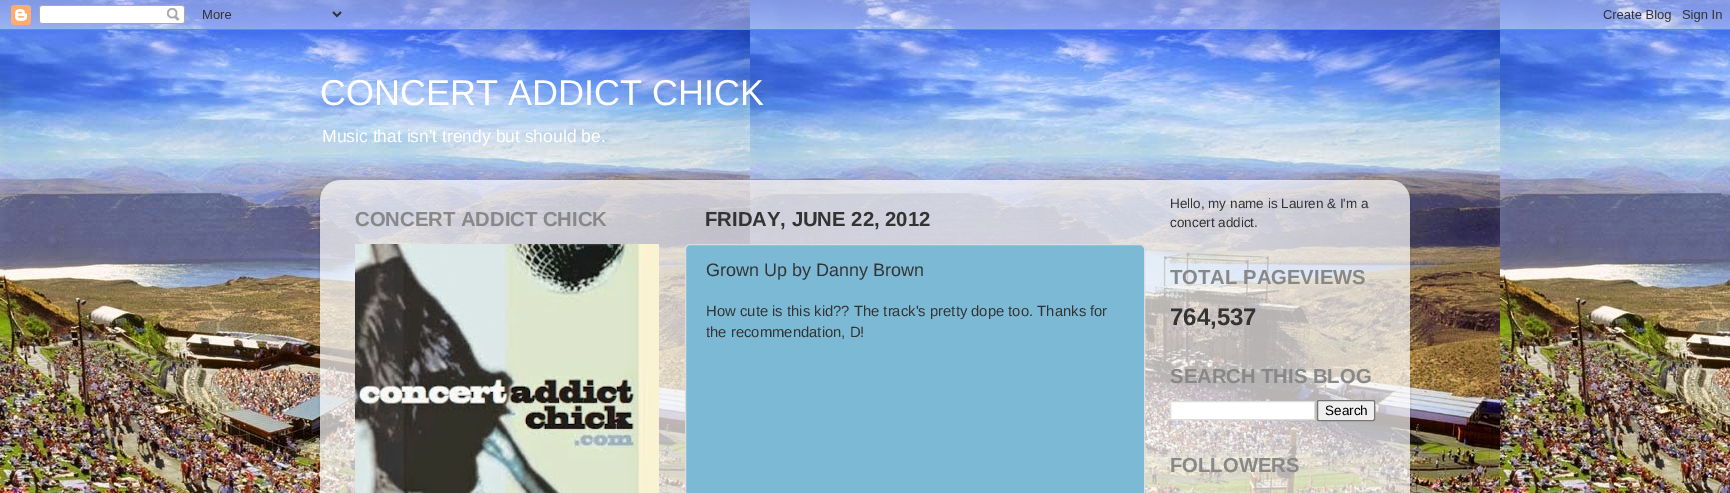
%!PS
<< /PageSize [1730 493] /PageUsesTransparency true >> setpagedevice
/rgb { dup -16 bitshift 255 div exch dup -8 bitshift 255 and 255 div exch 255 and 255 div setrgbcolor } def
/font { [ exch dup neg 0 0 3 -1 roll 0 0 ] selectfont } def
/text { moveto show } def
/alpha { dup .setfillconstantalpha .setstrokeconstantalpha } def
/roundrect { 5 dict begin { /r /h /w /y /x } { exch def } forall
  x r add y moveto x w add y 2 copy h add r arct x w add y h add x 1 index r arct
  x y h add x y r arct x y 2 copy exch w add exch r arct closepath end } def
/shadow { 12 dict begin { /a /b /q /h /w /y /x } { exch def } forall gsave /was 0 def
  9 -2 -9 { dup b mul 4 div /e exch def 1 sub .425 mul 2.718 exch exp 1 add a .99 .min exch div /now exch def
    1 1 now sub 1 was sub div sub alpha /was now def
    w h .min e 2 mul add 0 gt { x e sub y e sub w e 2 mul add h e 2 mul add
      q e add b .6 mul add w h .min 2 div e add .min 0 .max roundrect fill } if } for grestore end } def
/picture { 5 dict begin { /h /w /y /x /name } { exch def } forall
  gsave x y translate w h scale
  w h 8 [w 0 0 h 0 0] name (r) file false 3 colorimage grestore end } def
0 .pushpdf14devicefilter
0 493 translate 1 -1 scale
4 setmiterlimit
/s1 { /LiberationSans-Regular 36 font 16#FFFFFF rgb } def
/s2 { /LiberationSans-Regular 17.5 font 16#FFFFFF rgb } def
/s3 { /LiberationSans-Bold 20.25 font 16#888888 rgb } def
/s4 { /LiberationSans-Bold 20.25 font 16#333333 rgb } def
/s5 { /LiberationSans-Regular 18 font 16#333333 rgb } def
/s6 { /LiberationSans-Regular 14.85 font 16#333333 rgb } def
/s7 { /LiberationSans-Regular 13.5 font 16#333333 rgb } def
/s8 { /LiberationSans-Bold 24 font 16#333333 rgb } def
/s9 { /LiberationSans-Regular 13.5 font 16#000000 rgb } def
16#FFFFFF rgb
0 0 1730 493 rectfill
(pic1.raw) 0 0 1730 493 picture
(pic2.raw) 0 0 1730 30 picture
s1
(CONCERT ADDICT CHICK) 320 105 text
s2
(Music that isn't trendy but should be.) 322 142 text
gsave
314 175 moveto 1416 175 lineto 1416 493 lineto 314 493 lineto closepath 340 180 moveto 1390 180 lineto 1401 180 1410 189 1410 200 curveto 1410 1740 lineto 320 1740 lineto 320 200 lineto 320 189 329 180 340 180 curveto closepath eoclip newpath
16#000000 rgb
320 181 1090 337 20 1.5 0.15 shadow
grestore
(pic3.raw) 320 180 1090 313 picture
s3
(CONCERT ADDICT CHICK) 355 226 text
(pic4.raw) 355 244 304 249 picture
s4
(FRIDAY, JUNE 22, 2012) 705 226 text
16#7BB9D4 rgb
685.5 244.5 459 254 4.5 roundrect gsave fill grestore
16#DDDDDD rgb
stroke
s5
(Grown Up by Danny Brown) 706 276 text
s6
(How cute is this kid?? The track's pretty dope too. Thanks for) 706 316 text
(the recommendation, D!) 706 337 text
s7
(Hello, my name is Lauren & I'm a) 1170 208 text
(concert addict.) 1170 227 text
s3
(TOTAL PAGEVIEWS) 1170 284 text
s8
(764,537) 1170 325 text
s3
(SEARCH THIS BLOG) 1170 383 text
16#FFFFFF rgb
1170.5 401.5 moveto 1314.5 401.5 lineto 1314.5 419.5 lineto 1170.5 419.5 lineto closepath gsave fill grestore
16#DDDDDD rgb
stroke
16#EFEFEF rgb
1317.5 400.5 57 20 1.5 roundrect gsave fill grestore
16#767676 rgb
stroke
s9
(Search) 1325 415 text
s3
(FOLLOWERS) 1170 472 text
.poppdf14devicefilter showpage
